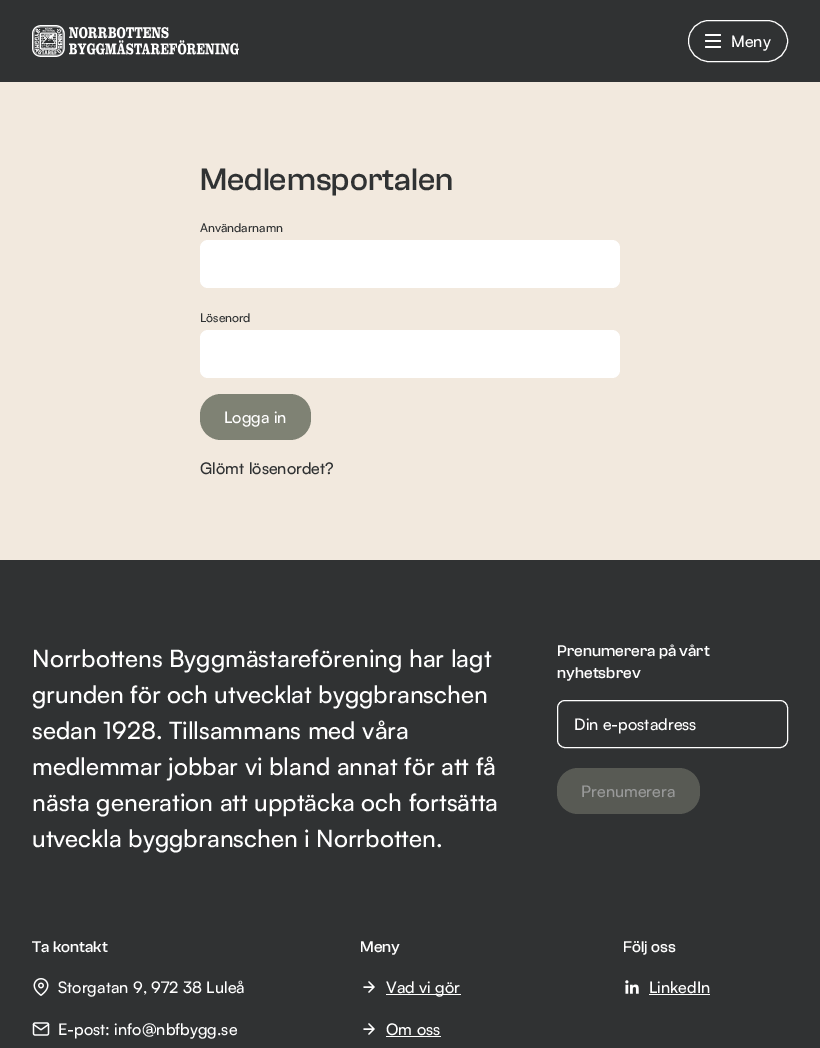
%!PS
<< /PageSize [820 1048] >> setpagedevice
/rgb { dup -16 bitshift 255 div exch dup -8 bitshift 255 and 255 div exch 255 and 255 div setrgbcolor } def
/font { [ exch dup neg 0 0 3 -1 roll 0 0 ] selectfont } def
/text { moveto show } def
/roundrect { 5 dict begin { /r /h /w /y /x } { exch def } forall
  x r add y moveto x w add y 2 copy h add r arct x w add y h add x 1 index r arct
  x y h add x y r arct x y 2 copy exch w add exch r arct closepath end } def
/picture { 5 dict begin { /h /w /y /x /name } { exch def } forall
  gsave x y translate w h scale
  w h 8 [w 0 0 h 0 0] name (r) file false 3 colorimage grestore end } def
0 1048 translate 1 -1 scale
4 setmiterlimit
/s1 { /Satoshi-Medium 16 font 16#FFFFFF rgb } def
/s2 { /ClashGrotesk-Medium 32 font 16#303233 rgb } def
/s3 { /Satoshi-Medium 12 font 16#303233 rgb } def
/s4 { /Satoshi-Medium 16 font 16#303233 rgb } def
/s5 { /Satoshi-Medium 24 font 16#FFFFFF rgb } def
/s6 { /ClashGrotesk-Medium 16 font 16#FFFFFF rgb } def
/s7 { /Satoshi-Medium 16 font 16#989999 rgb } def
16#F2E9DE rgb
0 0 820 1048 rectfill
16#303233 rgb
0 0 820 82 rectfill
(pic1.raw) 32 25 207 32 picture
16#FFFFFF rgb
688.5 20.5 99 41 20.5 roundrect stroke
705 34 16 2 1 roundrect fill
705 40 16 2 1 roundrect fill
705 46 16 2 1 roundrect fill
s1
(Meny) 731 47 text
s2
(Medlemsportalen) 200 190 text
s3
(Användarnamn) 200 232 text
16#FFFFFF rgb
200 240 420 48 8 roundrect fill
s3
(Lösenord) 200 322 text
16#FFFFFF rgb
200 330 420 48 8 roundrect fill
16#7F8274 rgb
200 394 111 46 21 roundrect fill
s1
(Logga in) 224 423 text
s4
(Glömt lösenordet?) 200 474 text
0 560 820 488 rectfill
s5
(Norrbottens Byggmästareförening har lagt) 32 667 text
(grunden för och utvecklat byggbranschen) 32 703 text
(sedan 1928. Tillsammans med våra) 32 739 text
(medlemmar jobbar vi bland annat för att få) 32 775 text
(nästa generation att upptäcka och fortsätta) 32 811 text
(utveckla byggbranschen i Norrbotten.) 32 847 text
s6
(Prenumerera på vårt) 557 656 text
(nyhetsbrev) 557 678 text
557.5 700.5 230 47 7.5 roundrect stroke
s1
(Din e-postadress) 574 730 text
16#585A54 rgb
557 768 143 46 21 roundrect fill
s7
(Prenumerera) 581 797 text
s6
(Ta kontakt) 32 952 text
(pic2.raw) 33 978 16 18 picture
s1
(Storgatan 9, 972 38 Luleå) 58 993 text
(pic3.raw) 32 1022 18 14 picture
(E-post: info@nbfbygg.se) 58 1035 text
s6
(Meny) 360 952 text
1.4 setlinewidth
1 setlinecap
1 setlinejoin
364 987 moveto 374 987 lineto 369 982 moveto 374 987 lineto 369 992 lineto 364 1029 moveto 374 1029 lineto 369 1024 moveto 374 1029 lineto 369 1034 lineto stroke
386 994 75 1 rectfill
s1
(Vad vi gör) 386 993 text
(Om oss) 386 1035 text
386 1036 55 1 rectfill
s6
(Följ oss) 623 952 text
(pic4.raw) 625 980 14 14 picture
s1
(LinkedIn) 649 993 text
649 994 61 1 rectfill
showpage
